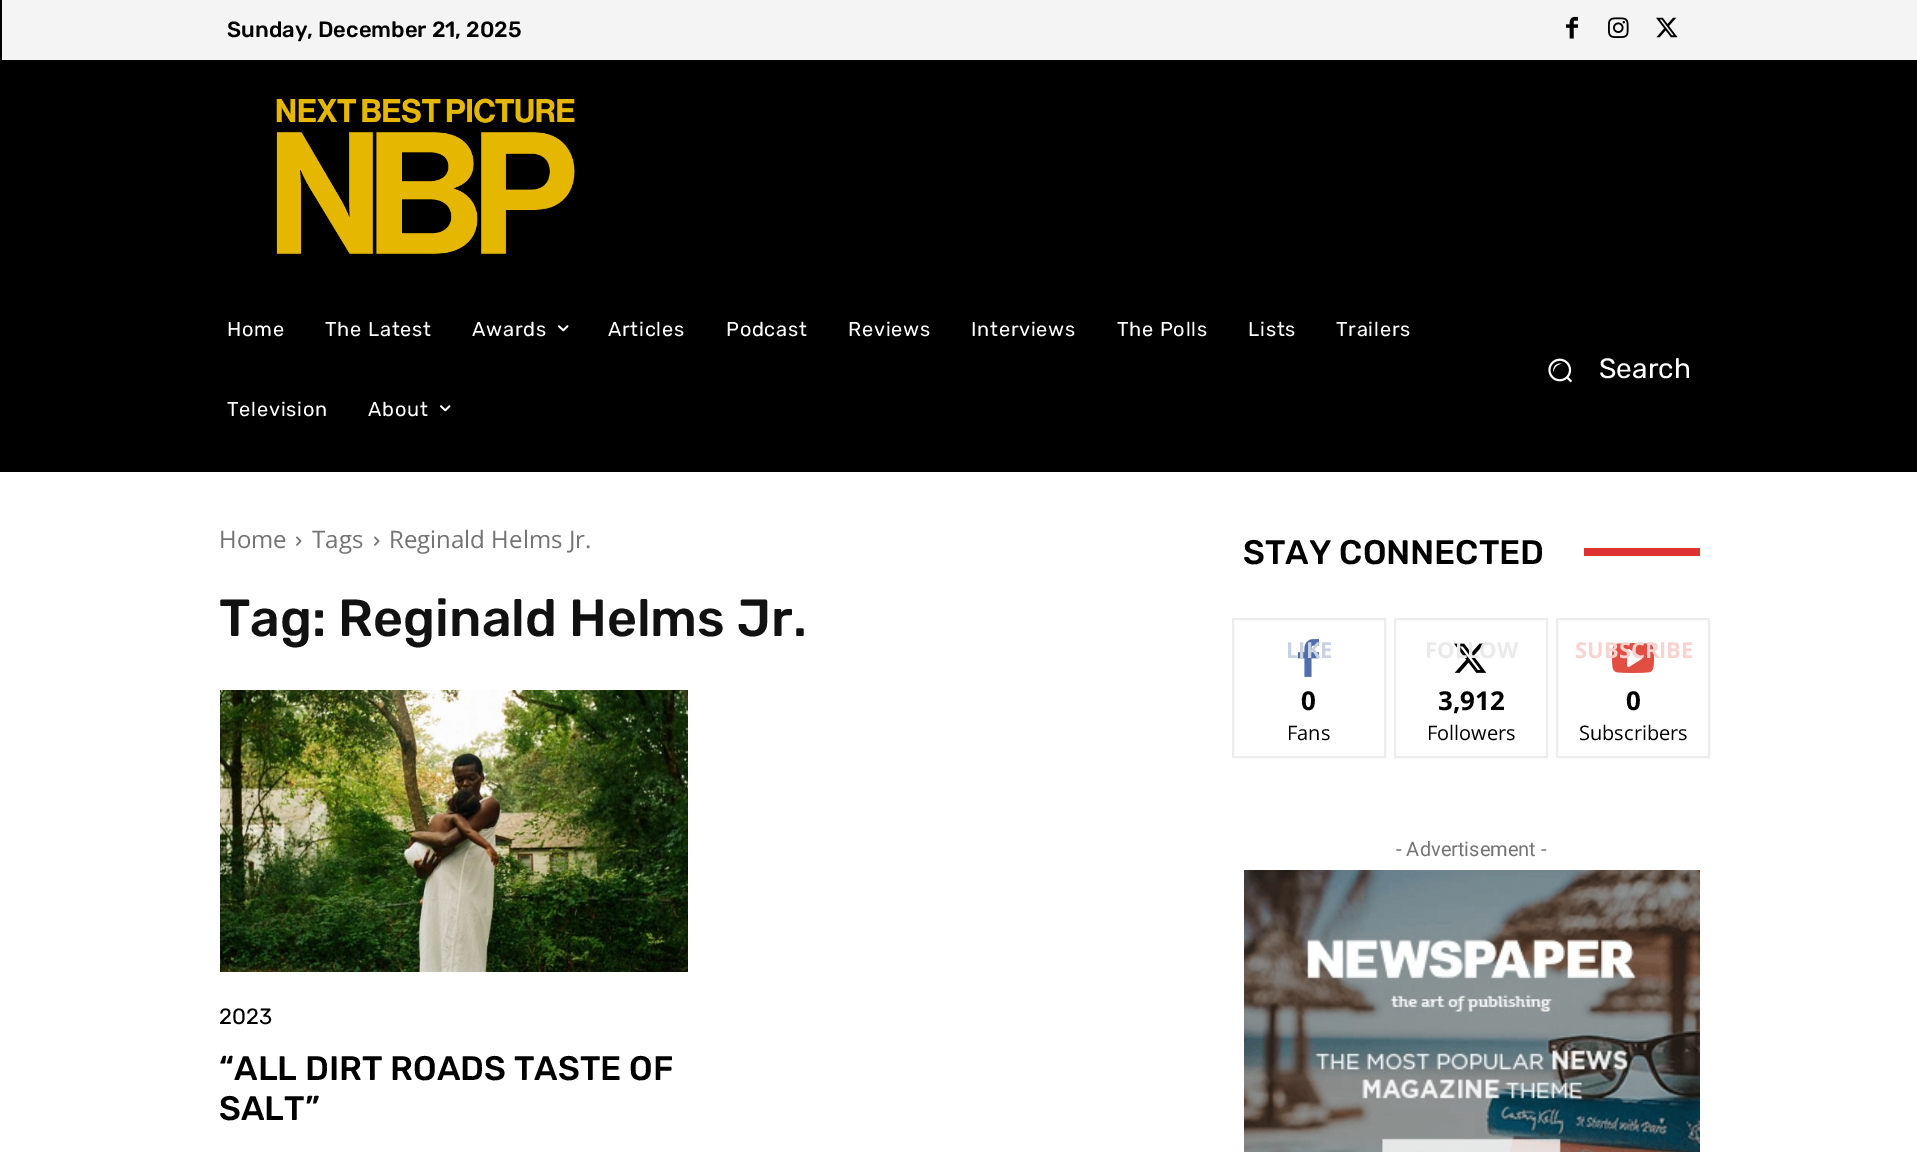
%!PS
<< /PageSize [1917 1152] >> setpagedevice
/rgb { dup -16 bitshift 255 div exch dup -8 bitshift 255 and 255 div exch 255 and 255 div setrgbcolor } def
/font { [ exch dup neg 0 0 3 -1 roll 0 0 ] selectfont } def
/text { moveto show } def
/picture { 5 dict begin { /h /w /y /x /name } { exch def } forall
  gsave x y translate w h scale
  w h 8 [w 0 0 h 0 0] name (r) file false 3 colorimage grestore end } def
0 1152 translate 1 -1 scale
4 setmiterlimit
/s1 { /Rubik-Medium 22 font 16#000000 rgb } def
/s2 { /Rubik-Regular 28 font 16#FFFFFF rgb } def
/s3 { /OpenSans-Regular 24 font 16#747474 rgb } def
/s4 { /Rubik-Medium 52 font 16#111111 rgb } def
/s5 { /Rubik-Regular 22 font 16#000000 rgb } def
/s6 { /Rubik-Medium 34 font 16#000000 rgb } def
/s7 { /OpenSans-Bold 22 font 16#C9D2E5 rgb } def
/s8 { /OpenSans-Bold 26 font 16#000000 rgb } def
/s9 { /OpenSans-Regular 20 font 16#000000 rgb } def
/s10 { /OpenSans-Bold 22 font 16#EAEAEA rgb } def
/s11 { /OpenSans-Bold 22 font 16#F8D3D0 rgb } def
/s12 { /Roboto-Regular 20 font 16#747474 rgb } def
16#000000 rgb
0 0 1917 1152 rectfill
16#F4F4F4 rgb
2 0 1915 60 rectfill
s1
(Sunday, December 21, 2025) 227 37 text
(pic1.raw) 1566 16 12 23 picture
(pic2.raw) 1608 17 21 21 picture
(pic3.raw) 1656 17 22 21 picture
(pic4.raw) 276 98 299 156 picture
/Rubik-Regular 20 font
16#FFFFFF rgb
227 336 moveto 0.75 0 (Home) ashow
325 336 moveto 0.75 0 (The Latest) ashow
472 336 moveto 0.75 0 (Awards) ashow
(pic5.raw) 558 325 11 7 picture
608 336 moveto 0.75 0 (Articles) ashow
726 336 moveto 0.75 0 (Podcast) ashow
848 336 moveto 0.75 0 (Reviews) ashow
971 336 moveto 0.75 0 (Interviews) ashow
1117 336 moveto 0.75 0 (The Polls) ashow
1248 336 moveto 0.75 0 (Lists) ashow
1336 336 moveto 0.75 0 (Trailers) ashow
227 416 moveto 0.75 0 (Television) ashow
368 416 moveto 0.75 0 (About) ashow
(pic5.raw) 440 405 11 7 picture
(pic6.raw) 1548 358 25 25 picture
s2
(Search) 1599 378 text
0 472 1917 680 rectfill
s3
(Home) 219 548 text
(pic7.raw) 296 536 6 10 picture
(Tags) 312 548 text
(pic7.raw) 374 536 6 10 picture
(Reginald Helms Jr.) 389 548 text
s4
(Tag: Reginald Helms Jr.) 219 636 text
(pic8.raw) 220 690 468 282 picture
s5
(2023) 219 1024 text
s6
(“ALL DIRT ROADS TASTE OF) 219 1080 text
(SALT”) 219 1120 text
(STAY CONNECTED) 1243 564 text
16#DD3333 rgb
1584 548 116 8 rectfill
16#EDEDED rgb
2 setlinewidth
1233 619 152 138 rectstroke
(pic9.raw) 1298 639 21 38 picture
s7
(LIKE) 1286 658 text
s8
(0) 1301 710 text
s9
(Fans) 1287 740 text
16#EDEDED rgb
1395 619 152 138 rectstroke
(pic10.raw) 1454 643 33 30 picture
s10
(FOLLOW) 1425 658 text
s8
(3,912) 1438 710 text
s9
(Followers) 1427 740 text
16#EDEDED rgb
1557 619 152 138 rectstroke
(pic11.raw) 1612 643 42 30 picture
s11
(SUBSCRIBE) 1575 658 text
s8
(0) 1626 710 text
s9
(Subscribers) 1579 740 text
s12
(- Advertisement -) 1396 856 text
(pic12.raw) 1244 870 456 282 picture
showpage
